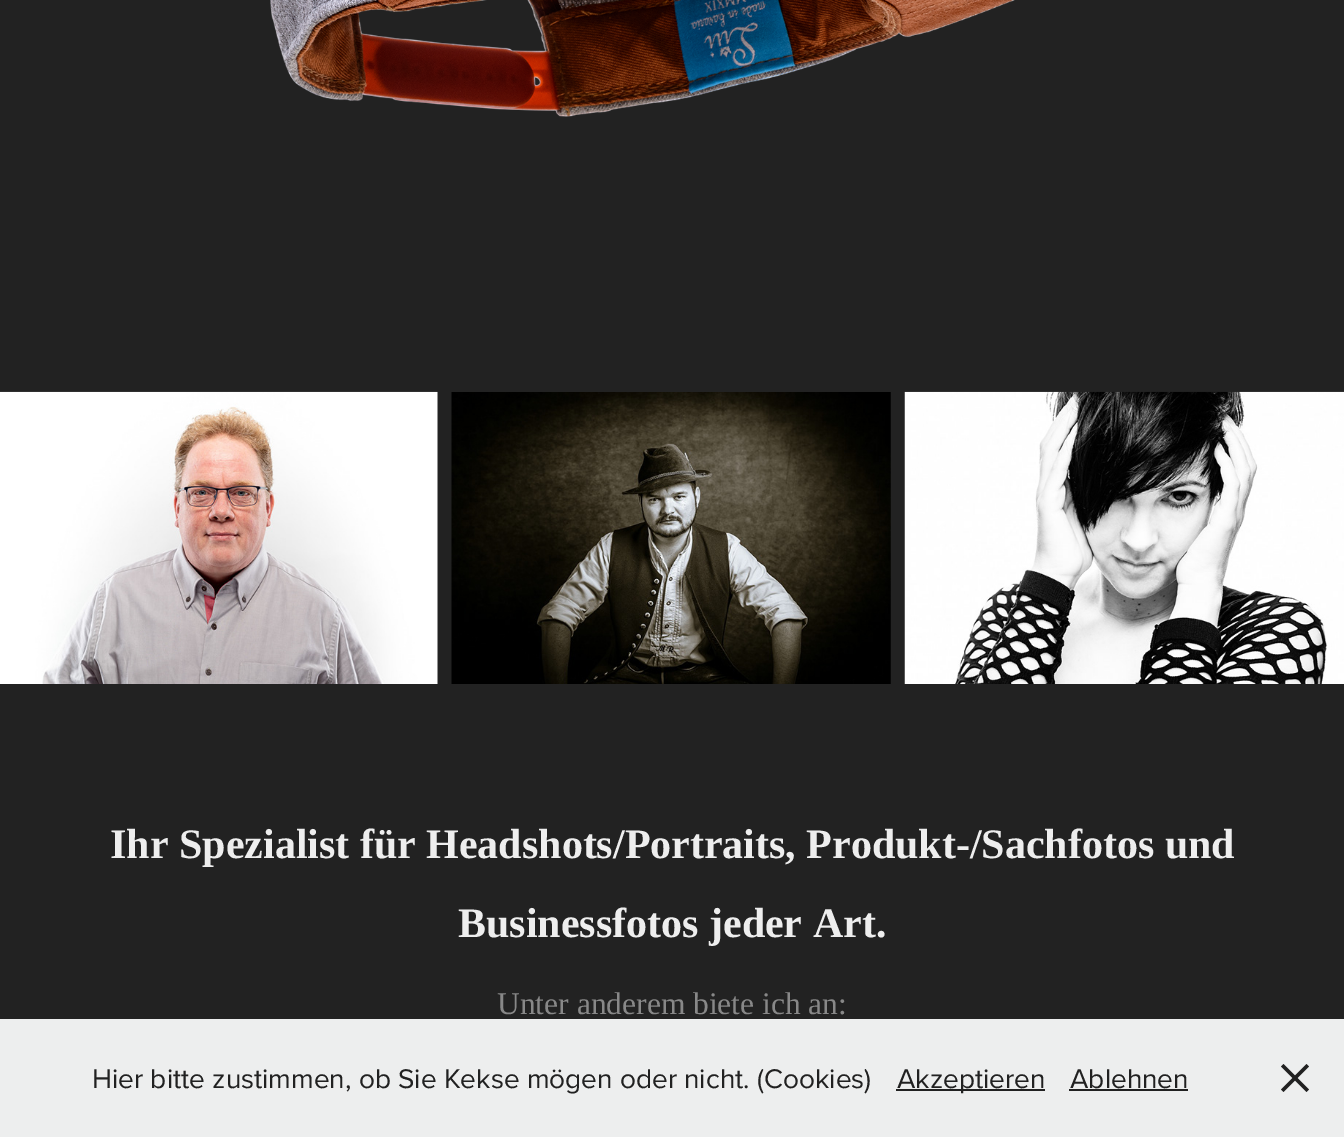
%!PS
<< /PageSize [1344 1137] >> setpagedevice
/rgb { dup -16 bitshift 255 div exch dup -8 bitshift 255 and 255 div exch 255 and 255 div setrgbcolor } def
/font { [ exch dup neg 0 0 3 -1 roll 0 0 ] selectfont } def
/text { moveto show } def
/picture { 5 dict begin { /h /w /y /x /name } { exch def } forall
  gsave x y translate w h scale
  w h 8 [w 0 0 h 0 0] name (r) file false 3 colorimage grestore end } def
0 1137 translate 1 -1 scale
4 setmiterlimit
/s1 { /LiberationSerif-Bold 42 font 16#EEEEEE rgb } def
/s2 { /LiberationSerif-Regular 31.5 font 16#888888 rgb } def
/s3 { /ProximaNova-Regular 28 font 16#212121 rgb } def
16#222222 rgb
0 0 1344 1137 rectfill
(pic1.raw) 270 0 745 117 picture
(pic2.raw) 0 391 438 293 picture
(pic3.raw) 451 392 440 292 picture
(pic4.raw) 904 391 440 293 picture
s1
(Ihr Spezialist für Headshots/Portraits, Produkt-/Sachfotos und) 110 858 text
(Businessfotos jeder Art.) 458 937 text
s2
(Unter anderem biete ich an:) 497 1014 text
16#EDEEEE rgb
0 1019 1344 118 rectfill
s3
(Hier bitte zustimmen, ob Sie Kekse mögen oder nicht. \(Cookies\)) 92 1088 text
896 1089 149 2 rectfill
(Akzeptieren) 897 1088 text
(Ablehnen) 1070 1088 text
1069 1089 119 2 rectfill
1281 1066.5 moveto 1283.5 1064 lineto 1309 1089.5 lineto 1306.5 1092 lineto closepath fill
1283.5 1092 moveto 1281 1089.5 lineto 1306.5 1064 lineto 1309 1066.5 lineto closepath fill
showpage
